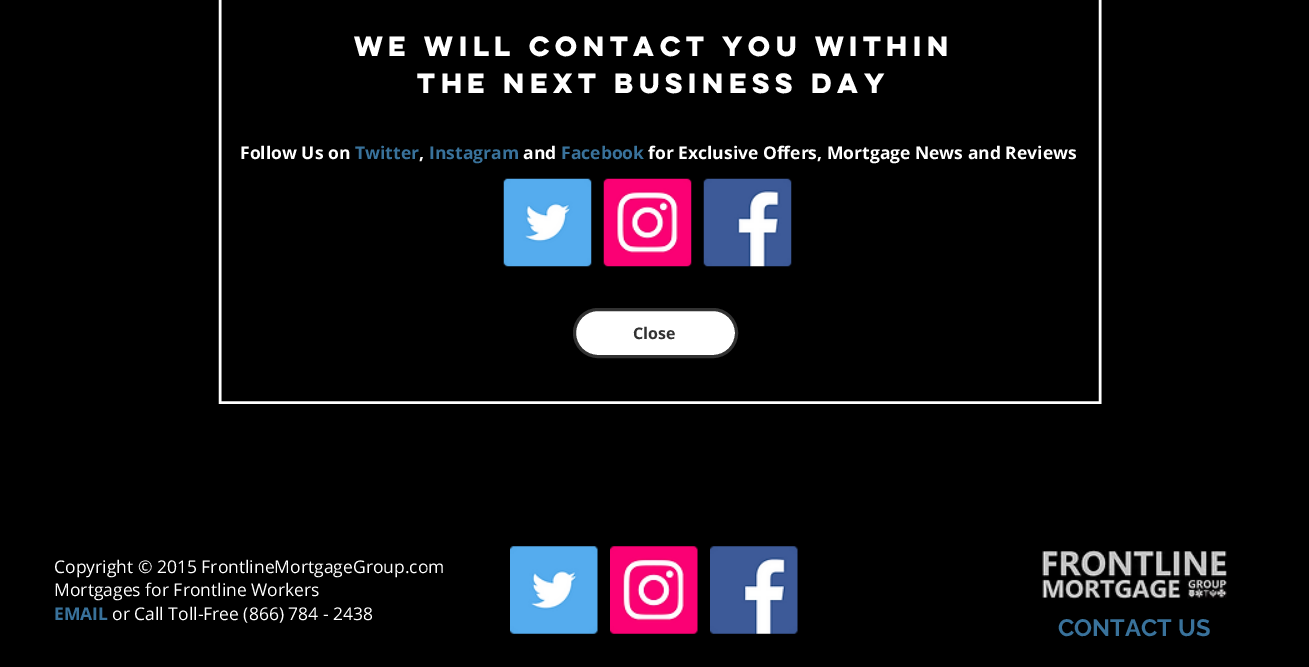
%!PS
<< /PageSize [1309 667] >> setpagedevice
/rgb { dup -16 bitshift 255 div exch dup -8 bitshift 255 and 255 div exch 255 and 255 div setrgbcolor } def
/font { [ exch dup neg 0 0 3 -1 roll 0 0 ] selectfont } def
/text { moveto show } def
/roundrect { 5 dict begin { /r /h /w /y /x } { exch def } forall
  x r add y moveto x w add y 2 copy h add r arct x w add y h add x 1 index r arct
  x y h add x y r arct x y 2 copy exch w add exch r arct closepath end } def
/picture { 5 dict begin { /h /w /y /x /name } { exch def } forall
  gsave x y translate w h scale
  w h 8 [w 0 0 h 0 0] name (r) file false 3 colorimage grestore end } def
0 667 translate 1 -1 scale
4 setmiterlimit
/s1 { /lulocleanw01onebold-Bold 25 font 16#FFFFFF rgb } def
/s2 { /OpenSans-Bold 17.5 font 16#FFFFFF rgb } def
/s3 { /OpenSans-Bold 17.5 font 16#39729B rgb } def
/s4 { /OpenSans-Bold 16 font 16#323232 rgb } def
/s5 { /OpenSans-Regular 17.5 font 16#FFFFFF rgb } def
/s6 { /Raleway-Regular 8 font 16#000000 rgb } def
/s7 { /Raleway-Bold 23.75 font 16#39729B rgb } def
16#000000 rgb
0 0 1309 667 rectfill
16#FFFFFF rgb
2.5 setlinewidth
1100 -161 moveto 1100 402.5 lineto 220 402.5 lineto 220 -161 lineto closepath stroke
s1
(We will contact you within) 354 56 text
(the next business day) 417 93 text
s2
(Follow Us on) 240 159 text
s3
(Twitter) 355 159 text
s2
(,) 419 159 text
s3
(Instagram) 429 159 text
s2
(and) 523 159 text
s3
(Facebook) 561 159 text
s2
(for Exclusive Offers, Mortgage News and Reviews) 648 159 text
(pic1.raw) 503 178 89 89 picture
(pic2.raw) 603 178 89 89 picture
(pic3.raw) 703 178 89 89 picture
574.5 309.5 162 47 23.5 roundrect gsave fill grestore
16#323232 rgb
3 setlinewidth
stroke
s4
(Close) 633 339 text
s5
(Copyright © 2015 FrontlineMortgageGroup.com) 54 573 text
(Mortgages for Frontline Workers) 54 596 text
s3
(EMAIL) 54 620 text
s5
(or Call Toll-Free \(866\) 784 - 2438) 112 620 text
(pic4.raw) 510 546 88 88 picture
(pic5.raw) 610 546 88 88 picture
(pic6.raw) 710 546 88 88 picture
(pic7.raw) 1042 550 185 49 picture
s6
(r) 425 571 text
s7
(CONTACT US) 1058 636 text
showpage
